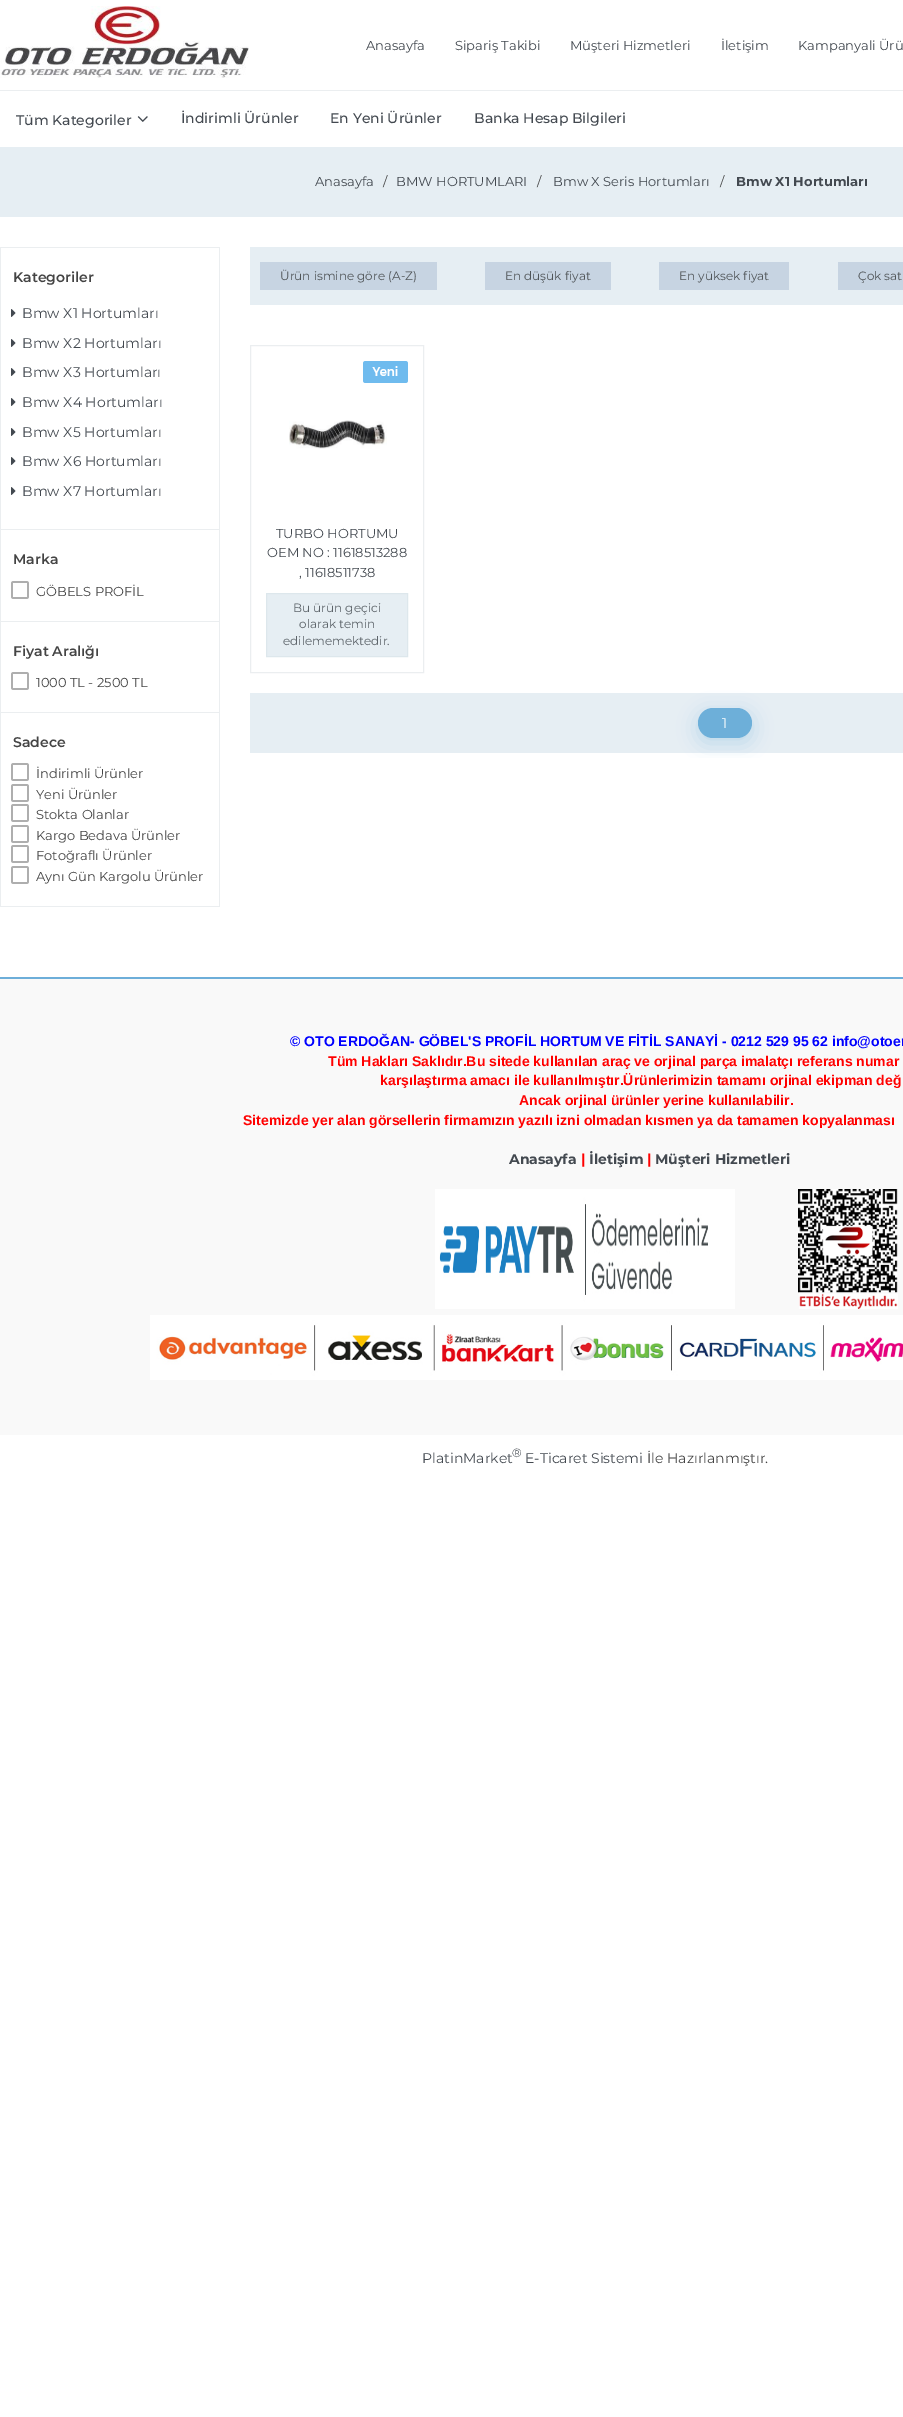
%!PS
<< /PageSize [903 2417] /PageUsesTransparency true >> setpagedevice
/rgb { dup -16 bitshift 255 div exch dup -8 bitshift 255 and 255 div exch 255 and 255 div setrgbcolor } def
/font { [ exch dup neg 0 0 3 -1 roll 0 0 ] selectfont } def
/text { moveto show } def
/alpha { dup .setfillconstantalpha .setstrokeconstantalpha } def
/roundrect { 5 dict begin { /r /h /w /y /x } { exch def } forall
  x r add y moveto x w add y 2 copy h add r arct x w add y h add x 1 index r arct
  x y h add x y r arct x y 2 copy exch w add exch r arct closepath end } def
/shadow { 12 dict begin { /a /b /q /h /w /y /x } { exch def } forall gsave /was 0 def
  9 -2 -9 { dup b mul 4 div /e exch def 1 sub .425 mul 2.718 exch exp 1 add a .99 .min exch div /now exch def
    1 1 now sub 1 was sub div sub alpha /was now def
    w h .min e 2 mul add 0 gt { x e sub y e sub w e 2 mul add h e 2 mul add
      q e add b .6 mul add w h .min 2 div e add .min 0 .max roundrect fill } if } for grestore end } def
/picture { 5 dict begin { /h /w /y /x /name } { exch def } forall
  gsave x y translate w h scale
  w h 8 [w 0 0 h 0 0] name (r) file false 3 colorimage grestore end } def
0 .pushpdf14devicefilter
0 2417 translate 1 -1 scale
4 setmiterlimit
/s1 { /Montserrat-Regular 13 font 16#434950 rgb } def
/s2 { /Montserrat-Medium 14 font 16#434950 rgb } def
/s3 { /Montserrat-Regular 13 font 16#444444 rgb } def
/s4 { /Montserrat-Bold 13 font 16#434950 rgb } def
/s5 { /Montserrat-SemiBold 14 font 16#444444 rgb } def
/s6 { /Montserrat-Regular 14 font 16#434950 rgb } def
/s7 { /Montserrat-Regular 12 font 16#505558 rgb } def
/s8 { /Montserrat-Regular 12 font 16#5C6369 rgb } def
/s9 { /Montserrat-Regular 14 font 16#FFFFFF rgb } def
/s10 { /LiberationSans-Bold 14 font 16#0000FF rgb } def
/s11 { /LiberationSans-Bold 14 font 16#FF0000 rgb } def
/s12 { /Montserrat-Bold 14 font 16#434950 rgb } def
/s13 { /Montserrat-Bold 14 font 16#FF0000 rgb } def
/s14 { /Montserrat-Regular 12 font 16#434950 rgb } def
/s15 { /Montserrat-Regular 14 font 16#444444 rgb } def
16#FFFFFF rgb
0 0 903 2417 rectfill
(pic1.raw) 0 6 249 72 picture
s1
(Anasayfa) 366 50 text
(Sipariş Takibi) 455 50 text
(Müşteri Hizmetleri) 570 50 text
(İletişim) 721 50 text
(Kampanyali Ürü) 798 50 text
16#EBEEF0 rgb
0 90 903 1 rectfill
s2
(Tüm Kategoriler) 16 125 text
(pic2.raw) 137 116 11 6 picture
(İndirimli Ürünler) 181 123 text
(En Yeni Ürünler) 330 123 text
(Banka Hesap Bilgileri) 474 123 text
16#E6EEF3 rgb
0 147 903 70 rectfill
s1
(Anasayfa) 315 186 text
s3
(/) 383 186 text
s1
(BMW HORTUMLARI) 396 186 text
s3
(/) 537 186 text
s1
(Bmw X Seris Hortumları) 553 186 text
s3
(/) 720 186 text
s4
(Bmw X1 Hortumları) 736 186 text
16#EBEEF0 rgb
219 247 1 660 rectfill
0 906 220 1 rectfill
0 247 1 660 rectfill
1 247 218 1 rectfill
s5
(Kategoriler) 13 282 text
(pic3.raw) 11 309 5 8 picture
s6
(Bmw X1 Hortumları) 22 318 text
(pic3.raw) 11 339 5 8 picture
(Bmw X2 Hortumları) 22 348 text
(pic3.raw) 11 368 5 8 picture
(Bmw X3 Hortumları) 22 377 text
(pic3.raw) 11 398 5 8 picture
(Bmw X4 Hortumları) 22 407 text
(pic3.raw) 11 428 5 8 picture
(Bmw X5 Hortumları) 22 437 text
(pic3.raw) 11 457 5 8 picture
(Bmw X6 Hortumları) 22 466 text
(pic3.raw) 11 487 5 8 picture
(Bmw X7 Hortumları) 22 496 text
16#EBEEF0 rgb
1 529 218 1 rectfill
s5
(Marka) 13 564 text
(pic4.raw) 11 581 18 18 picture
s3
(GÖBELS PROFİL) 36 596 text
16#EBEEF0 rgb
1 621 218 1 rectfill
s5
(Fiyat Aralığı) 13 656 text
(pic4.raw) 11 672 18 18 picture
s3
(1000 TL - 2500 TL) 36 687 text
16#EBEEF0 rgb
1 712 218 1 rectfill
s5
(Sadece) 13 747 text
(pic4.raw) 11 763 18 18 picture
s3
(İndirimli Ürünler) 36 778 text
(pic4.raw) 11 784 18 18 picture
(Yeni Ürünler) 36 799 text
(pic4.raw) 11 804 18 18 picture
(Stokta Olanlar) 36 819 text
(pic4.raw) 11 825 18 18 picture
(Kargo Bedava Ürünler) 36 840 text
(pic4.raw) 11 845 18 18 picture
(Fotoğraflı Ürünler) 36 860 text
(pic4.raw) 11 866 18 18 picture
(Aynı Gün Kargolu Ürünler) 36 881 text
16#E6EEF3 rgb
250 247 653 58 rectfill
16#C7D4E2 rgb
260 262 177 28 rectfill
s7
(Ürün ismine göre \(A-Z\)) 280 280 text
16#C7D4E2 rgb
485 262 126 28 rectfill
s7
(En düşük fiyat) 505 280 text
16#C7D4E2 rgb
659 262 130 28 rectfill
s7
(En yüksek fiyat) 679 280 text
16#C7D4E2 rgb
838 262 65 28 rectfill
s7
(Çok sat) 858 280 text
16#EBEEF0 rgb
250.5 345.5 173 327 rectstroke
(pic5.raw) 363 361 45 22 picture
(pic6.raw) 289 420 98 29 picture
s1
(TURBO HORTUMU) 276 538 text
(OEM NO : 11618513288) 267 557 text
(, 11618511738) 299 577 text
16#E6EEF3 rgb
266.5 593.5 moveto 407.5 593.5 lineto 407.5 656.5 lineto 266.5 656.5 lineto closepath gsave fill grestore
16#DDE7EC rgb
stroke
s8
(Bu ürün geçici) 293 612 text
(olarak temin) 299 628 text
(edilememektedir.) 283 645 text
16#E6EEF3 rgb
250 693 653 60 rectfill
gsave
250 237 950 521 rectclip
16#6DAFD9 rgb
698 713 54 30 15 10 0.35 shadow
grestore
16#6DAFD9 rgb
698 708 54 30 15 roundrect fill
s9
(1) 722 728 text
16#F9F9F9 rgb
0 979 903 456 rectfill
16#6DAED9 rgb
0 977 903 2 rectfill
s10
(© OTO ERDOĞAN- GÖBEL'S PROFİL HORTUM VE FİTİL SANAYİ - 0212 529 95 62 info@otoer) 290 1046 text
s11
(Tüm Hakları Saklıdır.Bu sitede kullanılan araç ve orjinal parça imalatçı referans numar) 328 1066 text
(karşılaştırma amacı ile kullanılmıştır.Ürünlerimizin tamamı orjinal ekipman değ) 380 1085 text
(Ancak orjinal ürünler yerine kullanılabilir.) 519 1105 text
(Sitemizde yer alan görsellerin firmamızın yazılı izni olmadan kısmen ya da tamamen kopyalanması) 243 1125 text
s12
(Anasayfa) 509 1164 text
s13
(|) 581 1164 text
s12
(İletişim) 589 1164 text
s13
(|) 647 1164 text
s12
(Müşteri Hizmetleri) 655 1164 text
(pic7.raw) 435 1189 300 120 picture
(pic8.raw) 798 1189 100 120 picture
(pic9.raw) 150 1315 753 65 picture
s6
(PlatinMarket) 422 1463 text
s14
(®) 512 1457 text
s6
(E-Ticaret Sistemi) 525 1463 text
s15
(İle Hazırlanmıştır.) 647 1463 text
.poppdf14devicefilter showpage
